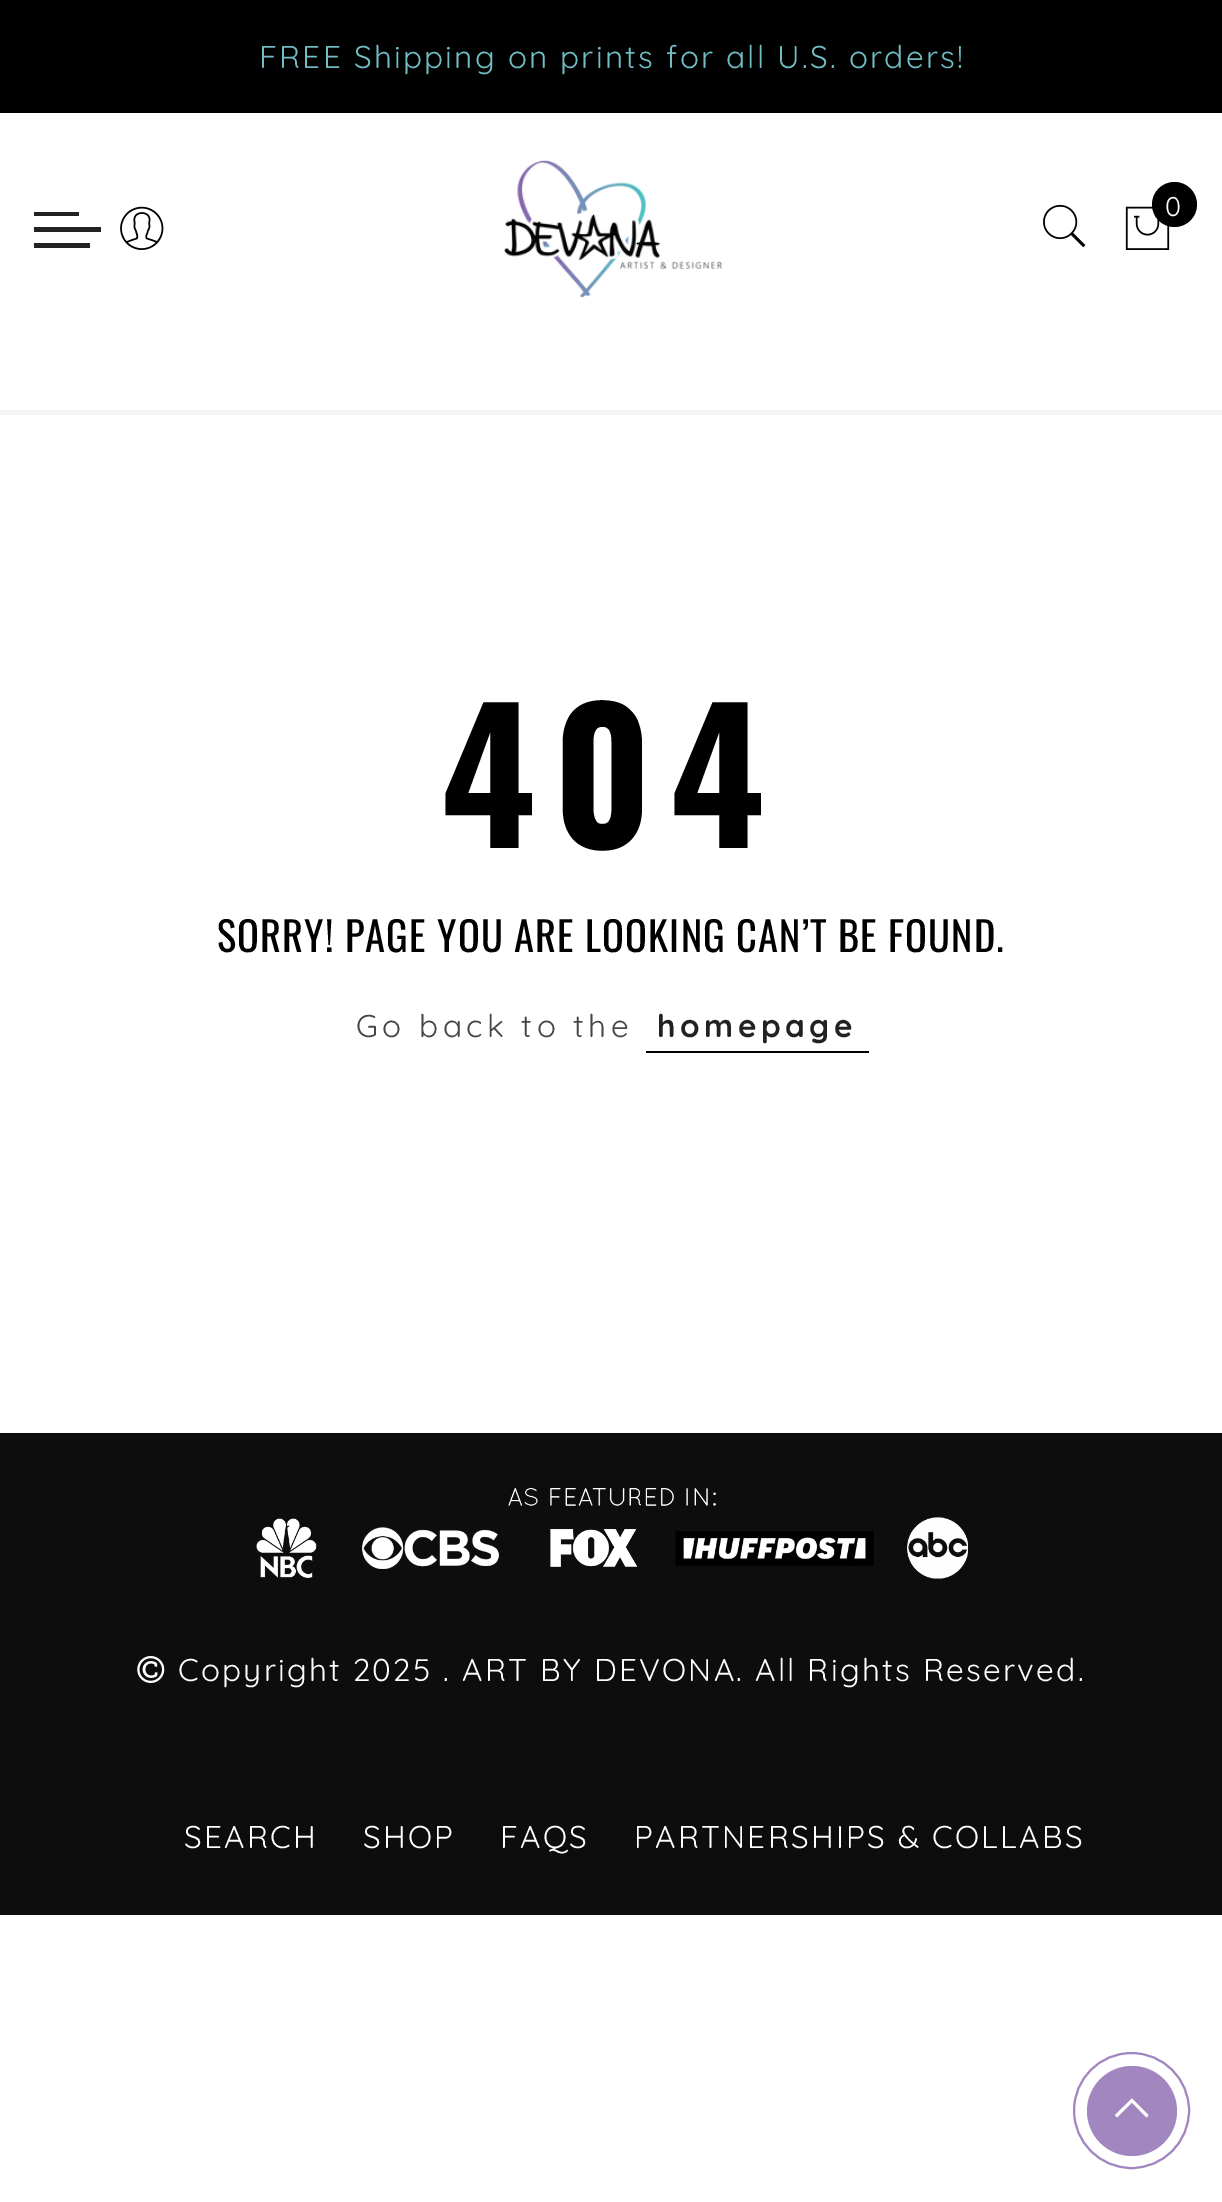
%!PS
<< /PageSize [1222 2202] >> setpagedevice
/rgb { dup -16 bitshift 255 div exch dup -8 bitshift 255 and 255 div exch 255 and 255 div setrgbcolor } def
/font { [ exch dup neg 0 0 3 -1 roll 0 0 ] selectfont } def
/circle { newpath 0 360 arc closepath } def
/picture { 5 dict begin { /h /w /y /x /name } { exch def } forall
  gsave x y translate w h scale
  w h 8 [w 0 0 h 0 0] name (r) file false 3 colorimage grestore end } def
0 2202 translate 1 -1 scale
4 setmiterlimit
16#FFFFFF rgb
0 0 1222 2202 rectfill
16#F5F5F5 rgb
0 410 1222 5 rectfill
16#000000 rgb
0 0 1222 113 rectfill
/Quicksand-Regular 31.5 font
16#70BDC3 rgb
259 68 moveto 2.25 0 (FREE Shipping on prints for all U.S. orders!) ashow
16#222222 rgb
34 212 45 4 rectfill
34 227 67 5 rectfill
34 243 56 5 rectfill
(pic1.raw) 120 206 44 44 picture
(pic2.raw) 504 160 219 138 picture
(pic3.raw) 1043 204 43 44 picture
(pic4.raw) 1125 206 45 44 picture
16#000000 rgb
1174.5 204.5 22.5 circle fill
/Quicksand-Regular 27 font
16#FFFFFF rgb
1165 216 moveto 2.25 0 (0) ashow
/Oswald-Bold 180 font
16#000000 rgb
441 848 moveto 18 0 (404) ashow
/Oswald-Regular 40.5 font
217 952 moveto 1.1 0 (SORRY! PAGE YOU ARE LOOKING CAN’T BE FOUND.) ashow
/Quicksand-Regular 31.5 font
16#434647 rgb
356 1037 moveto 4.5 0 (Go back to the) ashow
/Quicksand-Bold 31.5 font
16#222222 rgb
657 1037 moveto 4.5 0 (homepage) ashow
16#000000 rgb
646 1051 223 2 rectfill
16#0D0D0D rgb
0 1433 1222 482 rectfill
(pic5.raw) 256 1487 712 92 picture
(pic6.raw) 137 1656 28 27 picture
/Quicksand-Regular 31.5 font
16#FFFFFF rgb
178 1681 moveto 2.25 0 (Copyright 2025 . ART BY DEVONA. All Rights Reserved.) ashow
184 1848 moveto 2.25 0 (SEARCH) ashow
363 1848 moveto 2.25 0 (SHOP) ashow
500 1848 moveto 2.25 0 (FAQS) ashow
634 1848 moveto 2.25 0 (PARTNERSHIPS & COLLABS) ashow
16#A186BF rgb
2 setlinewidth
1131.5 2110.5 57.5 circle stroke
1132 2111 45 circle fill
16#FFFFFF rgb
1134 2100.5 moveto 1132 2098.5 lineto 1115 2115 lineto 1117 2117.5 lineto 1132 2102.5 lineto 1146.5 2117.5 lineto 1148.5 2115 lineto closepath fill
showpage
